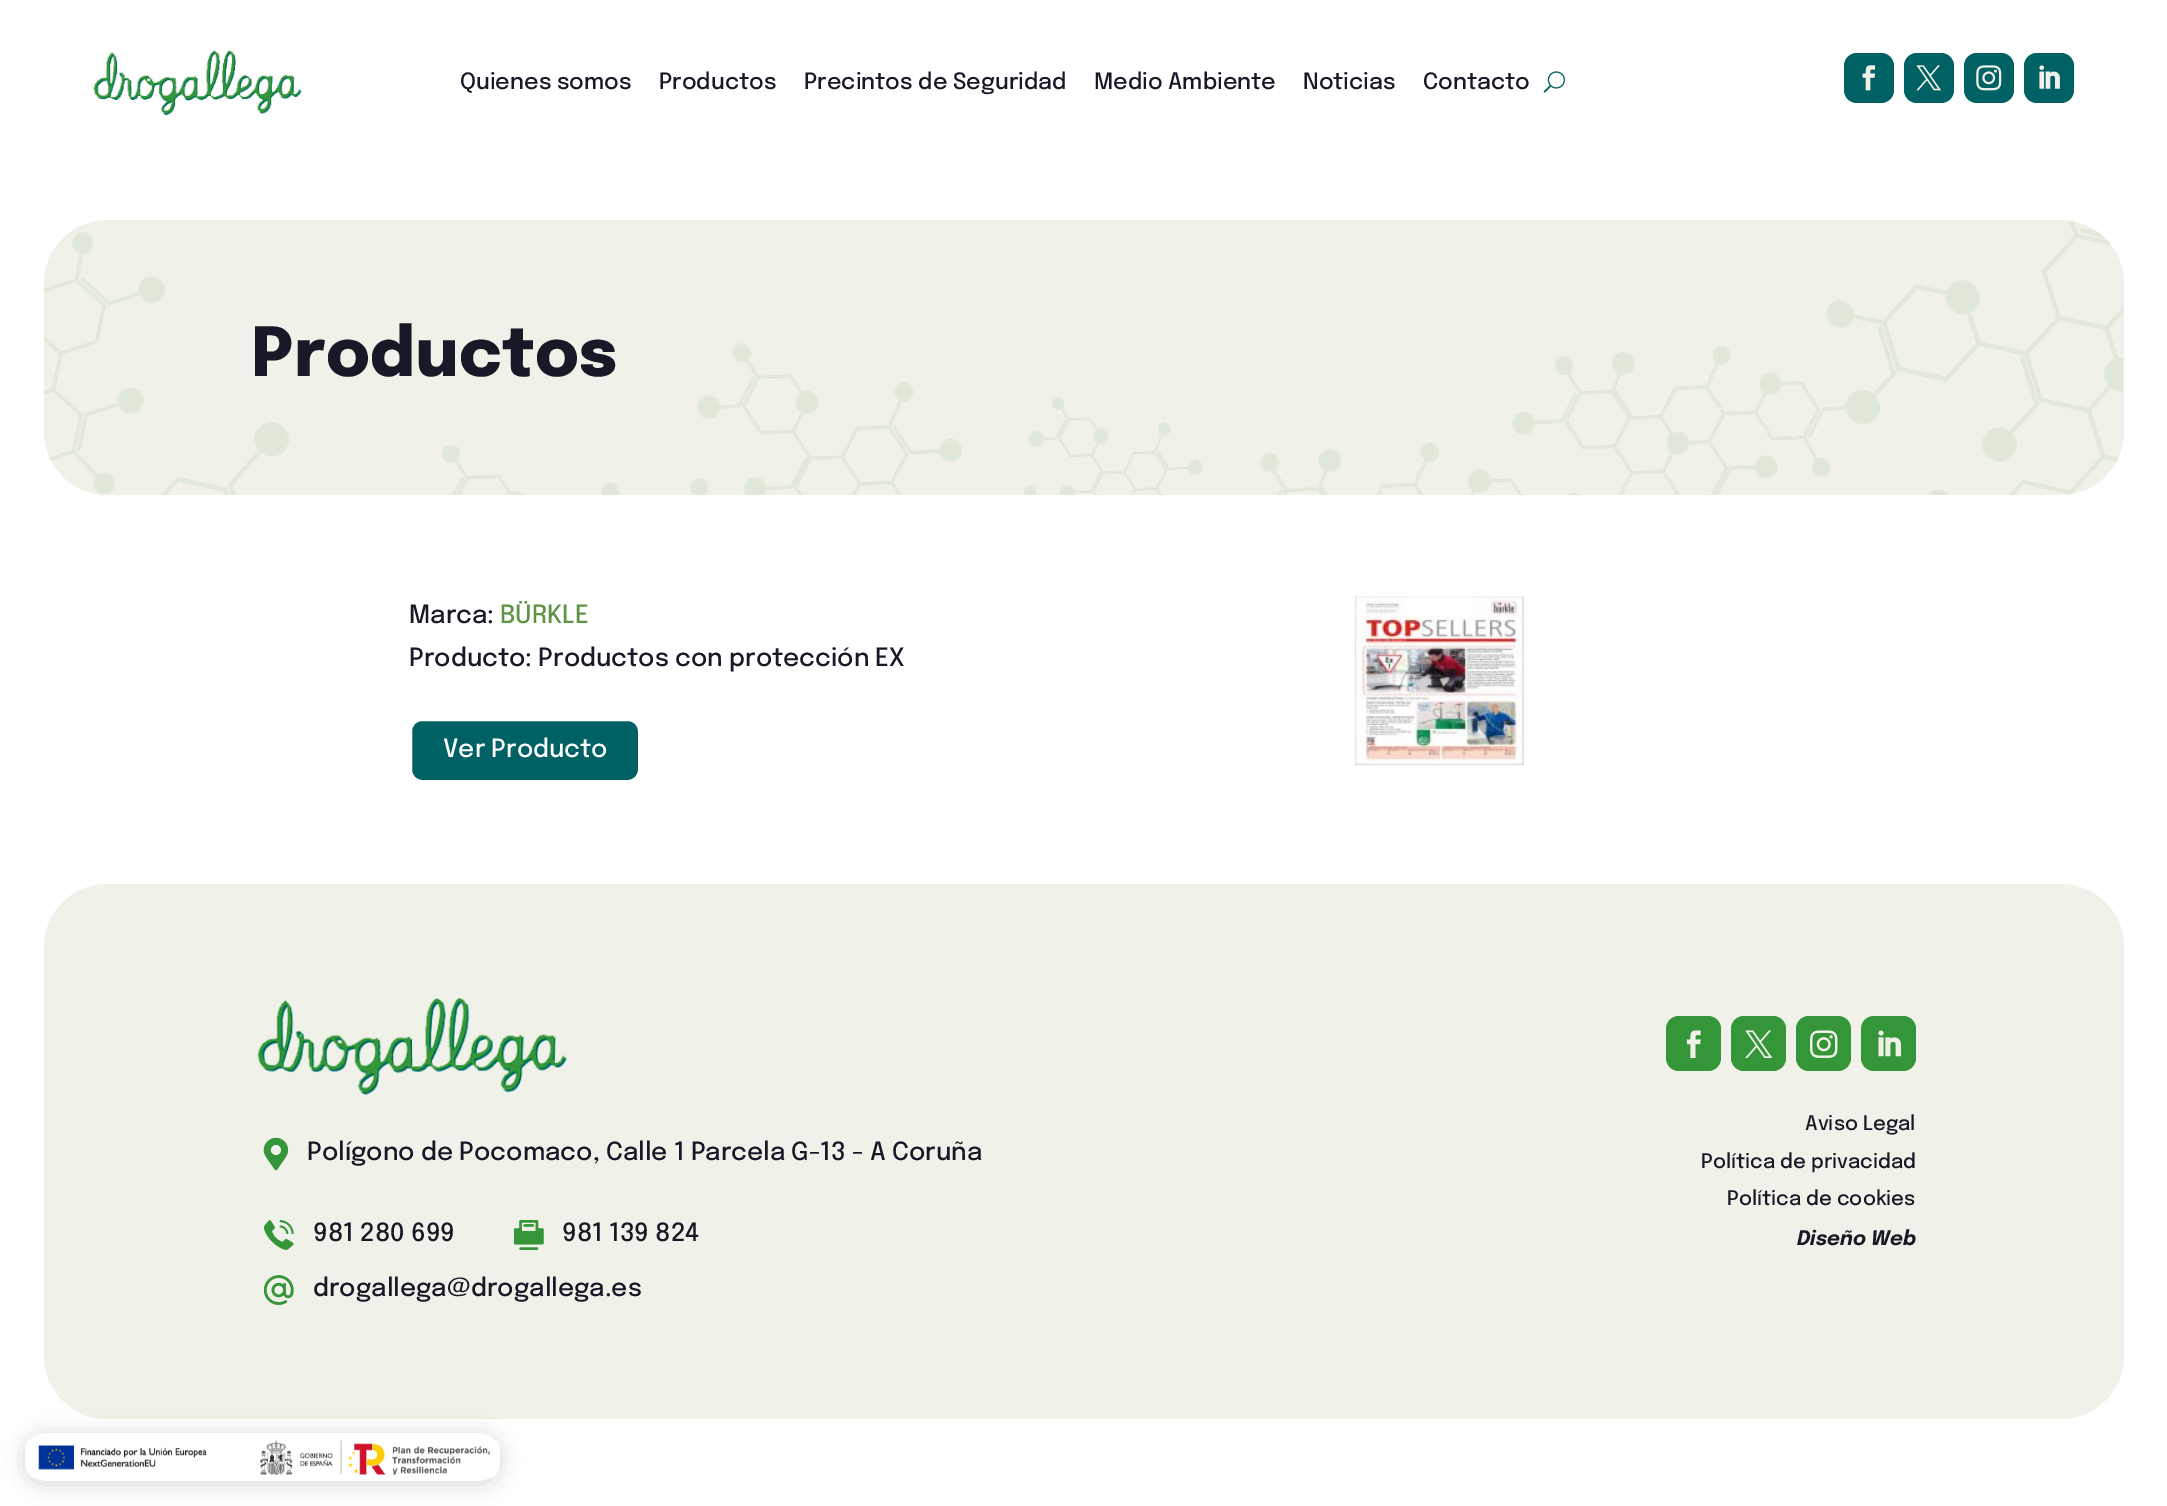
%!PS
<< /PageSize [2167 1506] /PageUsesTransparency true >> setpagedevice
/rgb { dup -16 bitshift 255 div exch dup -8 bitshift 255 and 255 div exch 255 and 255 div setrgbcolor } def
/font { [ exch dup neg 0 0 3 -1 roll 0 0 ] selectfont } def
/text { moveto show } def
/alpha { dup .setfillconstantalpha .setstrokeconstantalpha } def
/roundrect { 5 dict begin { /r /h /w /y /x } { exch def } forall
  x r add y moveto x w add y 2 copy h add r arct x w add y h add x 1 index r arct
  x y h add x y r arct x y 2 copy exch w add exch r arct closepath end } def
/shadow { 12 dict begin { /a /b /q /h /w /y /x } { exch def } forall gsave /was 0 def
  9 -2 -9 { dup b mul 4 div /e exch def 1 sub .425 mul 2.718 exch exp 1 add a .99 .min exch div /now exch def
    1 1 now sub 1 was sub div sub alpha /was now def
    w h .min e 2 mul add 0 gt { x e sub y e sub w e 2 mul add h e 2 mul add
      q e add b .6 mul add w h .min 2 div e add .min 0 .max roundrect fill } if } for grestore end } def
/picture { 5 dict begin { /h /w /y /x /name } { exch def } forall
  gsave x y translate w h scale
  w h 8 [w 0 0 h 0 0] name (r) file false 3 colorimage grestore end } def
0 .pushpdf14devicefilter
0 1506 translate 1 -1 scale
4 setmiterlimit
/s1 { /Epilogue-Medium 22.5 font 16#171926 rgb } def
/s2 { /Epilogue-ExtraBold 67.5 font 16#171926 rgb } def
/s3 { /Epilogue-Medium 25 font 16#171926 rgb } def
/s4 { /Epilogue-Medium 25 font 16#5E9442 rgb } def
/s5 { /Epilogue-Medium 25 font 16#FFFFFF rgb } def
/s6 { /Epilogue-Medium 20 font 16#171926 rgb } def
/s7 { /Epilogue-BoldItalic 20 font 16#171926 rgb } def
16#FFFFFF rgb
0 0 2167 1506 rectfill
(pic1.raw) 93 50 209 65 picture
s1
(Quienes somos) 460 89 text
(Productos) 659 89 text
(Precintos de Seguridad) 804 89 text
(Medio Ambiente) 1094 89 text
(Noticias) 1303 89 text
(Contacto) 1423 89 text
(pic2.raw) 1543 71 22 22 picture
16#006164 rgb
1844 53 50 50 13 roundrect fill
(pic3.raw) 1862 65 14 26 picture
1904 53 50 50 13 roundrect fill
(pic4.raw) 1916 65 26 26 picture
1964 53 50 50 13 roundrect fill
(pic5.raw) 1976 65 26 26 picture
2024 53 50 50 13 roundrect fill
(pic6.raw) 2039 65 21 24 picture
16#F0F1E9 rgb
44 220 2080 275 63 roundrect fill
(pic7.raw) 44 220 2080 275 picture
s2
(Productos) 251 376 text
s3
(Marca:) 409 623 text
s4
(BÜRKLE) 500 623 text
s3
(Producto: Productos con protección EX) 409 666 text
16#006164 rgb
410.5 719.5 229 62 11.5 roundrect gsave fill grestore
16#FFFFFF rgb
3 setlinewidth
stroke
(Ver Producto) 443 757 text
(pic8.raw) 1355 596 169 169 picture
16#F0F1E9 rgb
44 884 2080 535 63 roundrect fill
(pic9.raw) 257 997 310 98 picture
(pic10.raw) 263 1137 26 34 picture
s3
(Polígono de Pocomaco, Calle 1 Parcela G-13 - A Coruña) 307 1160 text
(pic11.raw) 264 1220 30 30 picture
(981 280 699) 313 1241 text
(pic12.raw) 514 1220 30 30 picture
(981 139 824) 562 1241 text
(pic13.raw) 264 1275 30 30 picture
(drogallega@drogallega.es) 313 1296 text
16#359539 rgb
1666 1016 55 55 13 roundrect fill
(pic14.raw) 1686 1030 15 28 picture
1731 1016 55 55 13 roundrect fill
(pic15.raw) 1745 1030 28 28 picture
1796 1016 55 55 13 roundrect fill
(pic16.raw) 1810 1030 28 28 picture
1861 1016 55 55 13 roundrect fill
(pic17.raw) 1878 1030 24 27 picture
s6
(Aviso Legal) 1805 1130 text
(Política de privacidad) 1701 1168 text
(Política de cookies) 1727 1205 text
s7
(Diseño Web) 1797 1245 text
gsave
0 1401 moveto 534 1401 lineto 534 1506 lineto 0 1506 lineto closepath 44 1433 moveto 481 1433 lineto 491.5 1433 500 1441.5 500 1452 curveto 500 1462 lineto 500 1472.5 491.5 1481 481 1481 curveto 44 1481 lineto 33.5 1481 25 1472.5 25 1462 curveto 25 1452 lineto 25 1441.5 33.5 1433 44 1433 curveto closepath eoclip newpath
16#000000 rgb
25 1435 475 49 19 11 0.16 shadow
grestore
(pic18.raw) 25 1440 475 38 picture
.poppdf14devicefilter showpage
